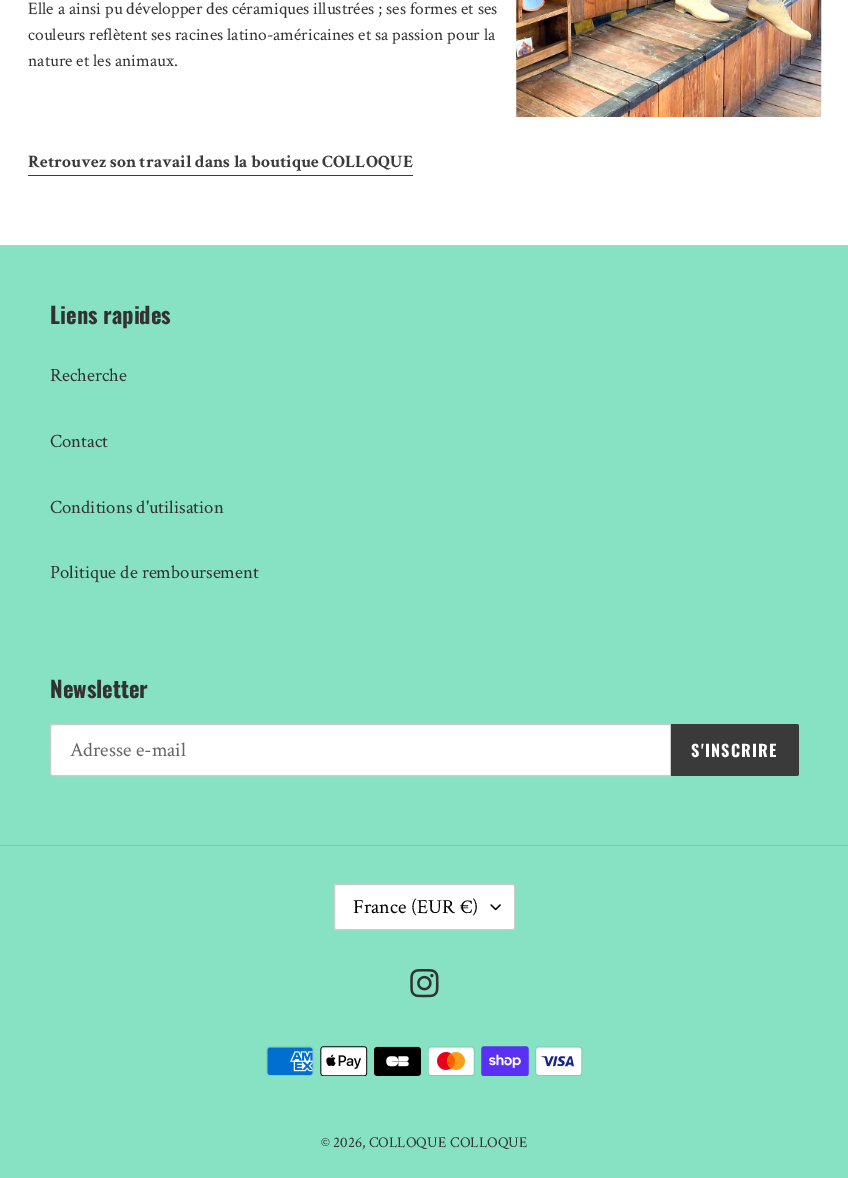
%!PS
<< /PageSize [848 1178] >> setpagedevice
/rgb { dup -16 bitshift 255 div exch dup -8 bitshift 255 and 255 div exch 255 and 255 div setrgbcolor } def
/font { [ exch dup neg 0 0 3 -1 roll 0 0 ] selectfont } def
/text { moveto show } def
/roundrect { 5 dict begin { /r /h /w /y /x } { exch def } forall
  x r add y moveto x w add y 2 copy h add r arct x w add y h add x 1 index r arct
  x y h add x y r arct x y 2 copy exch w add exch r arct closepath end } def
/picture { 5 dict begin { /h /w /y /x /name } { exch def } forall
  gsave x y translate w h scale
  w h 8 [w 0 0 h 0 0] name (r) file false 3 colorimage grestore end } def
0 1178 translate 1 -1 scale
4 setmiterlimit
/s1 { /CrimsonText-Regular 17.5 font 16#333232 rgb } def
/s2 { /CrimsonText-Bold 17.5 font 16#3A3A3A rgb } def
/s3 { /Oswald-Bold 22.5 font 16#333232 rgb } def
/s4 { /CrimsonText-Regular 18.75 font 16#333232 rgb } def
/s5 { /CrimsonText-Regular 20 font 16#666666 rgb } def
/s6 { /CrimsonText-Regular 20 font 16#000000 rgb } def
/s7 { /CrimsonText-Regular 15 font 16#333232 rgb } def
16#FFFFFF rgb
0 0 848 1178 rectfill
s1
(Elle a ainsi pu développer des céramiques illustrées ; ses formes et ses) 28 14 text
(couleurs reflètent ses racines latino-américaines et sa passion pour la) 28 40 text
(nature et les animaux.) 28 66 text
(pic1.raw) 516 0 306 117 picture
s2
(Retrouvez son travail dans la boutique COLLOQUE) 28 167 text
28 175 385 1 rectfill
16#86E2C3 rgb
0 245 848 933 rectfill
s3
(Liens rapides) 50 324 text
s4
(Recherche) 50 381 text
(Contact) 50 447 text
(Conditions d'utilisation) 50 513 text
(Politique de remboursement) 50 578 text
s3
(Newsletter) 50 698 text
16#FFFFFF rgb
52.5 724.5 moveto 670.5 724.5 lineto 670.5 775.5 lineto 52.5 775.5 lineto 51.5 775.5 50.5 774.5 50.5 773.5 curveto 50.5 726.5 lineto 50.5 725.5 51.5 724.5 52.5 724.5 curveto closepath gsave fill grestore
16#CCCCCC rgb
stroke
s5
(Adresse e-mail) 70 756 text
16#3A3A3A rgb
671 724 moveto 796.5 724 lineto 798 724 799 725 799 726.5 curveto 799 773.5 lineto 799 775 798 776 796.5 776 curveto 671 776 lineto closepath fill
/Oswald-Bold 16.25 font
16#FFFFFF rgb
691 757 moveto 1.25 0 (S'INSCRIRE) ashow
16#5DD8AF rgb
0 845 848 1 rectfill
16#FFFFFF rgb
334 884 181 46 2.5 roundrect fill
(pic2.raw) 490 904 11 7 picture
16#CCCCCC rgb
334.5 884.5 180 45 2 roundrect stroke
s6
(France \(EUR €\)) 353 913 text
(pic3.raw) 410 969 29 29 picture
(pic4.raw) 266 1046 48 30 picture
(pic5.raw) 320 1046 48 30 picture
(pic6.raw) 374 1046 47 30 picture
(pic7.raw) 428 1046 47 30 picture
(pic8.raw) 481 1046 48 30 picture
(pic9.raw) 535 1046 48 30 picture
s7
(© 2026, COLLOQUE) 321 1147 text
(COLLOQUE) 450 1147 text
showpage
